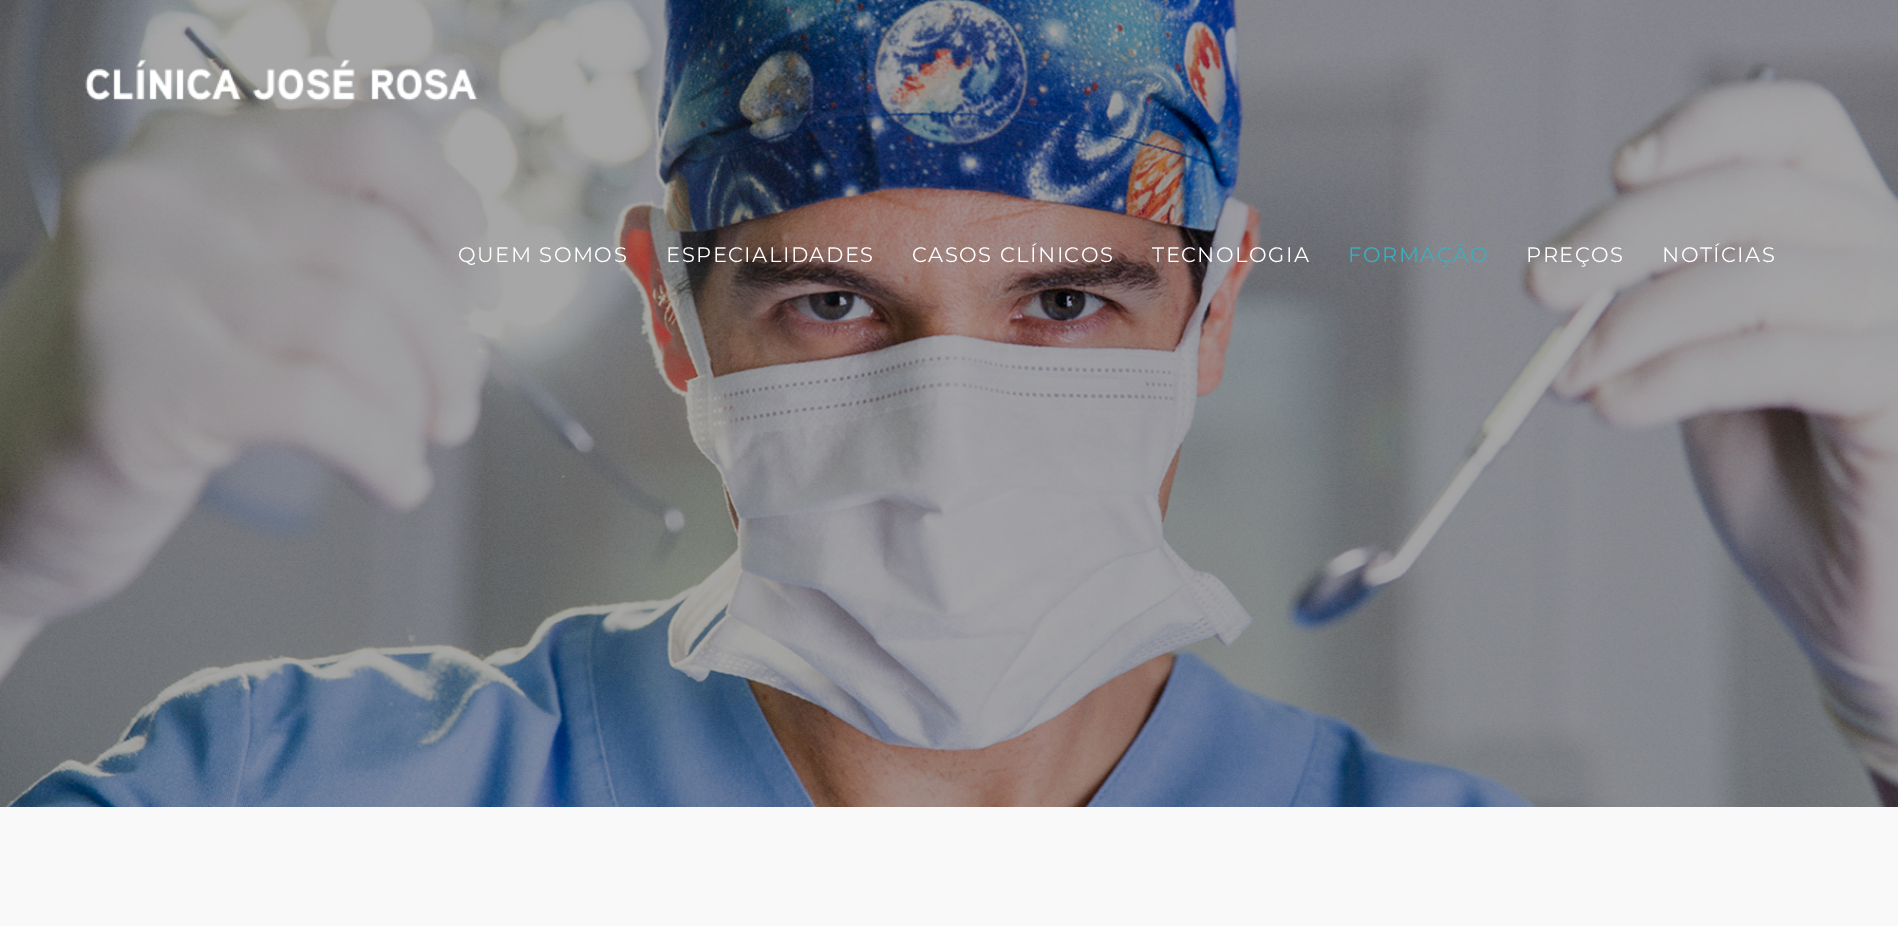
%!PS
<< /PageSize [1898 926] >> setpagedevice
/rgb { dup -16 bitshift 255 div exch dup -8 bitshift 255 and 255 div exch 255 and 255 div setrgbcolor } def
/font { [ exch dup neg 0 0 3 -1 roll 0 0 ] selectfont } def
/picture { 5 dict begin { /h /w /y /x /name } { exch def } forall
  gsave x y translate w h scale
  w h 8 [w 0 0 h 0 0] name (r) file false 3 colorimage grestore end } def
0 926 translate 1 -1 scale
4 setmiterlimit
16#F9F9F9 rgb
0 0 1898 926 rectfill
(pic1.raw) 0 0 1898 807 picture
(pic2.raw) 85 59 393 42 picture
/Montserrat-Thin 21 font
16#FFFFFF rgb
458 262 moveto 1.5 0 (QUEM SOMOS) ashow
666 262 moveto 1.5 0 (ESPECIALIDADES) ashow
912 262 moveto 1.5 0 (CASOS CLÍNICOS) ashow
1152 262 moveto 1.5 0 (TECNOLOGIA) ashow
16#3BAFBF rgb
1348 262 moveto 1.5 0 (FORMAÇÃO) ashow
16#FFFFFF rgb
1526 262 moveto 1.5 0 (PREÇOS) ashow
1662 262 moveto 1.5 0 (NOTÍCIAS) ashow
showpage
